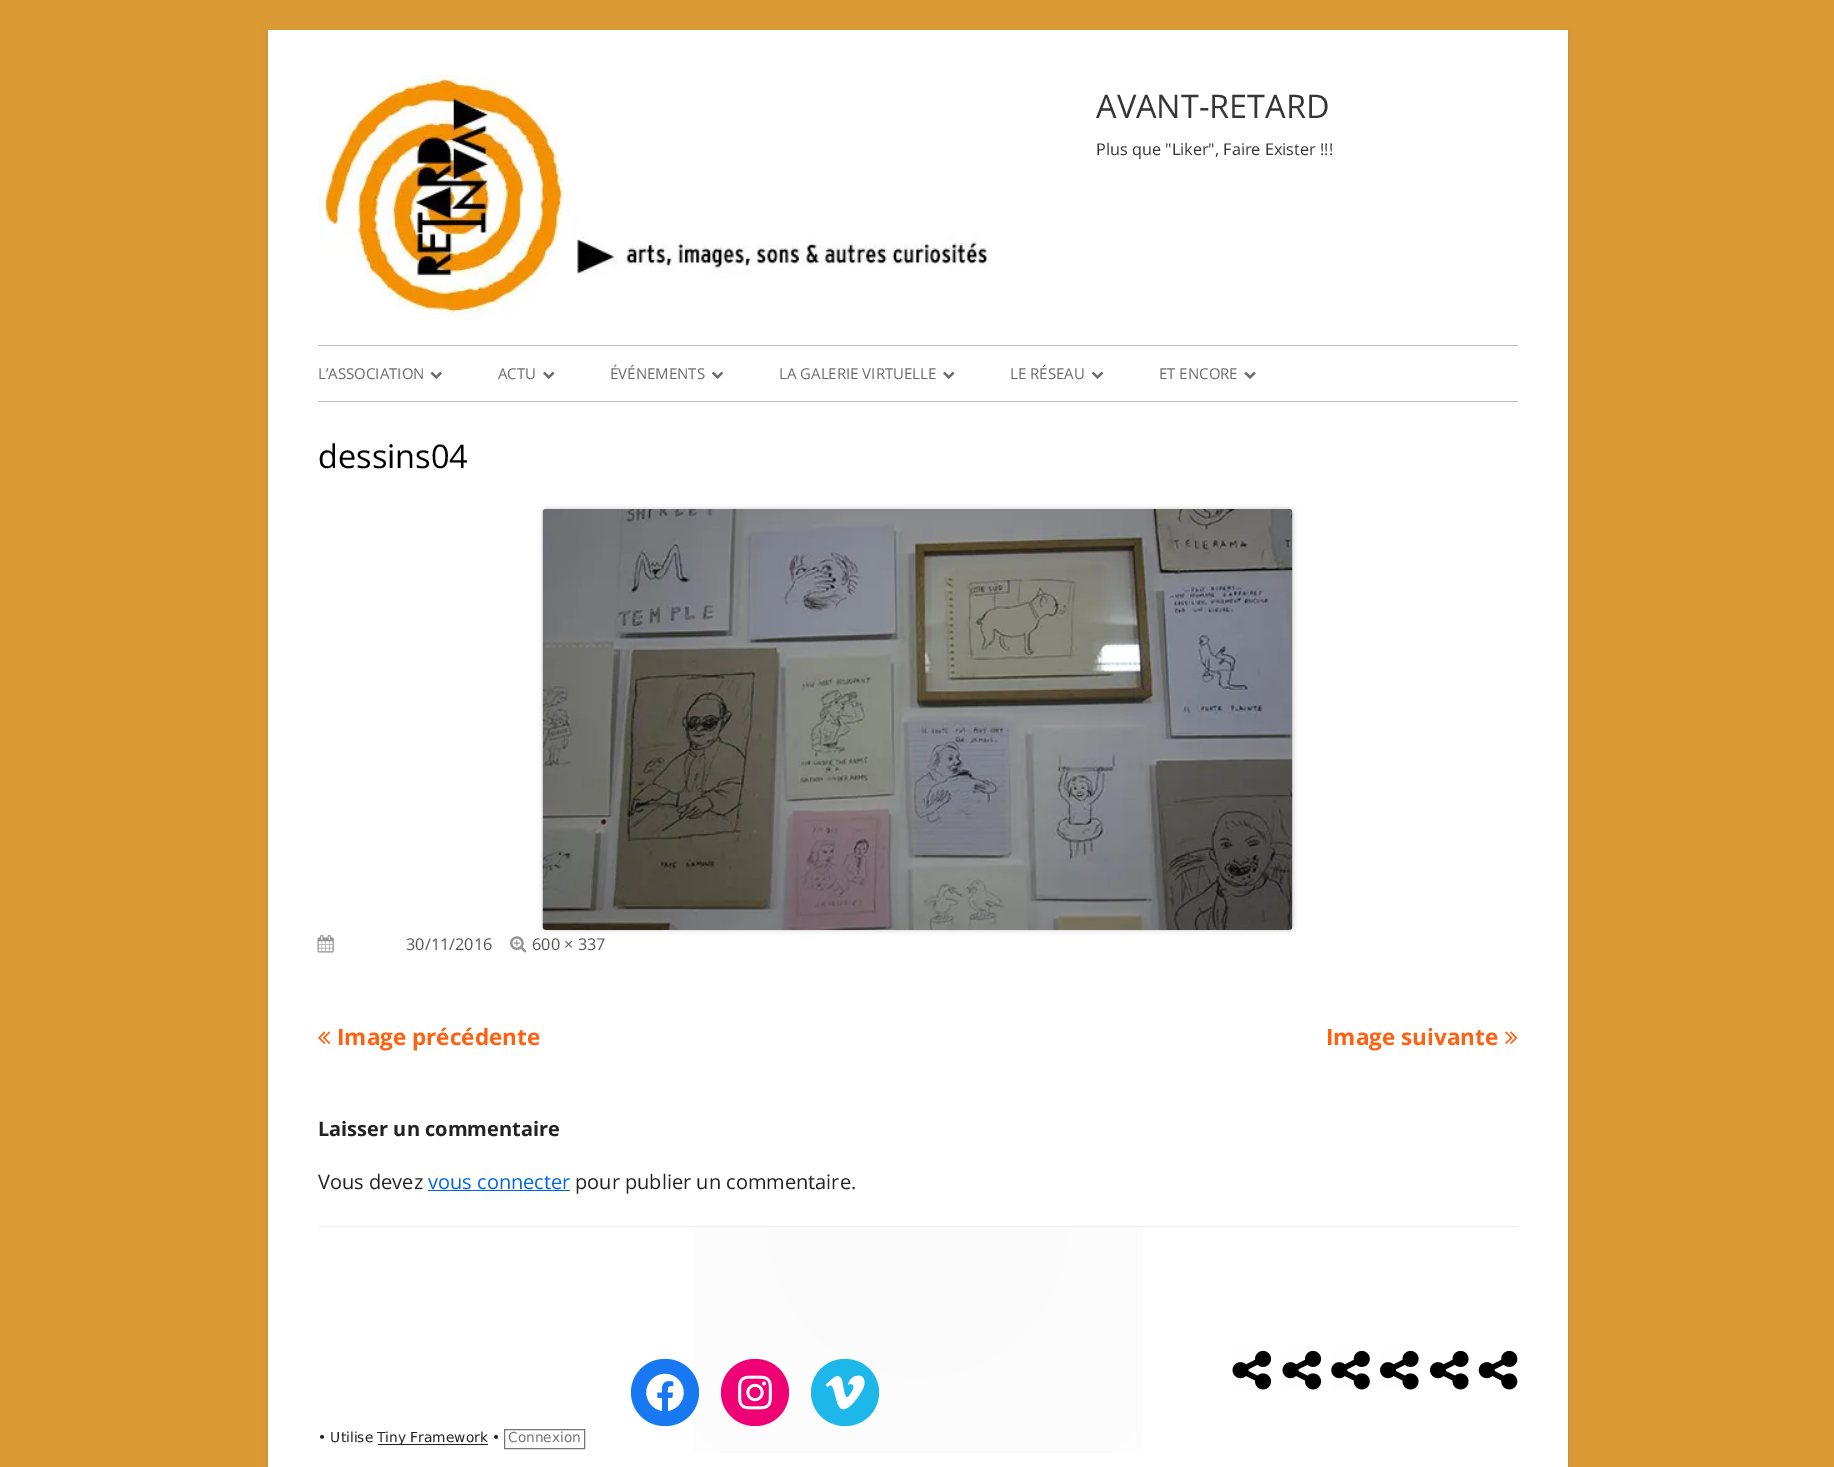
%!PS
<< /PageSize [1834 1467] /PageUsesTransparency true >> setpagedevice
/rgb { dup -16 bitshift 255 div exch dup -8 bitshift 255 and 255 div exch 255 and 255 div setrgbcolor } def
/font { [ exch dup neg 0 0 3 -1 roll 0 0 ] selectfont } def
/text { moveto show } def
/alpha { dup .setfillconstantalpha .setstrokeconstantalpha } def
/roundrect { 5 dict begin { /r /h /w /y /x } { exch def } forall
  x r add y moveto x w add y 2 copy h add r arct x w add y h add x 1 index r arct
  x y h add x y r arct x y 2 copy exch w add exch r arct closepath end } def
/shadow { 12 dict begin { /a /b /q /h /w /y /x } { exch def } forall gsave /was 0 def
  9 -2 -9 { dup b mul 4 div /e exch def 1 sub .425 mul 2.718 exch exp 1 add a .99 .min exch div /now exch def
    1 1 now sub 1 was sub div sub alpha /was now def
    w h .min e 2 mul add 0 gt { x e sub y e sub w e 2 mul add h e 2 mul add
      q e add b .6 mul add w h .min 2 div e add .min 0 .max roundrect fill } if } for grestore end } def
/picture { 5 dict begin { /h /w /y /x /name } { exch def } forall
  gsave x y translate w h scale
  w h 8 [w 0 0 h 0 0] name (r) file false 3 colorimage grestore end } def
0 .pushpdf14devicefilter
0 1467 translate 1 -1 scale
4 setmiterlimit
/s1 { /OpenSans-Regular 32.5 font 16#353535 rgb } def
/s2 { /OpenSans-Regular 16.25 font 16#353535 rgb } def
/s3 { /OpenSans-Regular 15 font 16#6A6A6A rgb } def
/s4 { /OpenSans-Regular 32.5 font 16#000000 rgb } def
/s5 { /OpenSans-Regular 16.25 font 16#555555 rgb } def
/s6 { /OpenSans-Bold 22.5 font 16#FF6111 rgb } def
/s7 { /OpenSans-Bold 20 font 16#222222 rgb } def
/s8 { /OpenSans-Regular 20 font 16#222222 rgb } def
/s9 { /OpenSans-Regular 20 font 16#0066DF rgb } def
/s10 { /DejaVuSans-Regular 13.75 font 16#222222 rgb } def
/s11 { /DejaVuSans-Regular 13.75 font 16#747474 rgb } def
16#DD9933 rgb
0 0 1834 1467 rectfill
16#646464 rgb
268 33 1300 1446 0 4 0.3 shadow
16#FFFFFF rgb
268 30 1300 1437 rectfill
(pic1.raw) 318 75 670 240 picture
s1
(AVANT-RETARD) 1096 118 text
s2
(Plus que "Liker", Faire Exister !!!) 1096 155 text
16#BBBBBB rgb
318 345 1200 1 rectfill
318 401 1200 1 rectfill
s3
(L’ASSOCIATION) 318 379 text
(pic2.raw) 430 371 12 8 picture
(ACTU) 498 379 text
(pic3.raw) 543 371 12 8 picture
(ÉVÉNEMENTS) 610 379 text
(pic4.raw) 711 371 13 8 picture
(LA GALERIE VIRTUELLE) 779 379 text
(pic3.raw) 943 371 12 8 picture
(LE RÉSEAU) 1010 379 text
(pic4.raw) 1091 371 13 8 picture
(ET ENCORE) 1159 379 text
(pic5.raw) 1244 371 12 8 picture
s4
(dessins04) 318 468 text
543 509 750 421 4 2.5 0.2 shadow
(pic6.raw) 542 508 751 422 picture
(pic7.raw) 317 935 17 18 picture
s5
(30/11/2016) 406 950 text
(pic8.raw) 510 936 17 17 picture
(600 × 337) 532 950 text
(pic9.raw) 318 1031 13 13 picture
s6
(Image précédente) 337 1045 text
(Image suivante) 1326 1045 text
(pic10.raw) 1505 1031 13 13 picture
s7
(Laisser un commentaire) 318 1136 text
s8
(Vous devez) 318 1189 text
s9
(vous connecter) 428 1189 text
428 1190 142 1 rectfill
s8
(pour publier un commentaire.) 575 1189 text
gsave 693 1228 moveto 1143 1228 lineto 1143 1453 lineto 693 1453 lineto closepath clip newpath 918 1228 translate 600 600 scale
<< /ShadingType 3 /ColorSpace /DeviceRGB /Coords [0 0 0 0 0 1] /Extend [true true] /Function << /FunctionType 2 /Domain [0 1] /C0 [0.984 0.984 0.984] /C1 [1 1 1] /N 1 >> >> shfill grestore
16#EDEDED rgb
318 1226 1200 1 rectfill
(pic11.raw) 1232 1350 40 40 picture
(pic12.raw) 1282 1350 40 40 picture
(pic13.raw) 1331 1350 39 40 picture
(pic14.raw) 1380 1350 39 40 picture
(pic15.raw) 1430 1350 39 40 picture
(pic16.raw) 1478 1350 40 40 picture
16#1778F2 rgb
631 1359 68 67 33.5 roundrect fill
(pic17.raw) 646 1373 38 38 picture
16#F00075 rgb
721 1359 68 67 33.5 roundrect fill
(pic18.raw) 738 1375 34 35 picture
16#1EB7EA rgb
811 1359 68 67 33.5 roundrect fill
(pic19.raw) 825 1375 40 35 picture
s10
(• Utilise) 318 1442 text
378 1444 110 1 rectfill
(Tiny Framework •) 377 1442 text
16#747474 rgb
504.5 1429.5 80 19 rectstroke
(Connexion) 508 1442 text
.poppdf14devicefilter showpage
